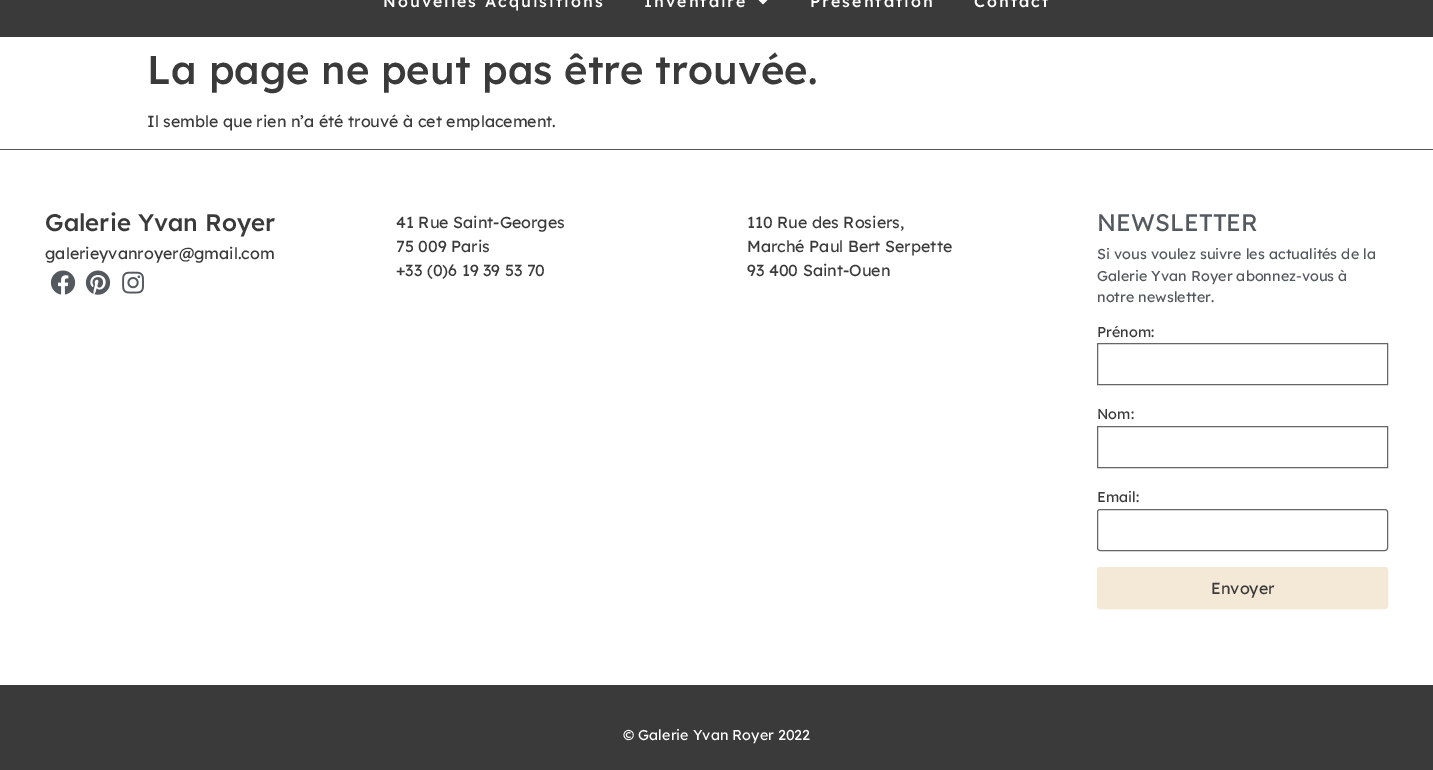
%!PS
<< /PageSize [1433 770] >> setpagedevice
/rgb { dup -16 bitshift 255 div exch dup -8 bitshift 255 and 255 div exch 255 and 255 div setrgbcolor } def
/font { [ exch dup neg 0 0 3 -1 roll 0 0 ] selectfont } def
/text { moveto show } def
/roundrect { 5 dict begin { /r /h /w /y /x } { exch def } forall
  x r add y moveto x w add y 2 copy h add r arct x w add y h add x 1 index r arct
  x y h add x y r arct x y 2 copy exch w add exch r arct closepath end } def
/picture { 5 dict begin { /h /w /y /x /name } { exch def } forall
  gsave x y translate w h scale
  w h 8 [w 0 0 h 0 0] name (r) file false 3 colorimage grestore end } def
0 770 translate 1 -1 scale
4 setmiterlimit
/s1 { /Lexend-Medium 40 font 16#3A3A3A rgb } def
/s2 { /Lexend-Regular 16 font 16#3A3A3A rgb } def
/s3 { /Lexend-Medium 24 font 16#3A3A3A rgb } def
/s4 { /Lexend-Regular 24 font 16#54595F rgb } def
/s5 { /Lexend-Regular 14.4 font 16#54595F rgb } def
/s6 { /Lexend-Regular 14.4 font 16#3A3A3A rgb } def
/s7 { /Lexend-Regular 14.4 font 16#FFFFFF rgb } def
16#FFFFFF rgb
0 0 1433 770 rectfill
16#3A3A3A rgb
0 0 1433 37 rectfill
/LexendDeca-Medium 16 font
16#FFFFFF rgb
383 7 moveto 2 0 (Nouvelles Acquisitions) ashow
644 7 moveto 2 0 (Inventaire) ashow
(pic1.raw) 758 0 10 5 picture
810 7 moveto 2 0 (Présentation) ashow
974 7 moveto 2 0 (Contact) ashow
s1
(La page ne peut pas être trouvée.) 147 84 text
s2
(Il semble que rien n’a été trouvé à cet emplacement.) 147 127 text
16#54595F rgb
0 149 1433 1 rectfill
s3
(Galerie Yvan Royer) 45 231 text
s2
(galerieyvanroyer@gmail.com) 45 259 text
(pic2.raw) 50 270 26 25 picture
(pic3.raw) 85 270 26 25 picture
(pic4.raw) 122 271 22 23 picture
(41 Rue Saint-Georges) 396 228 text
(75 009 Paris) 396 252 text
(+33 \(0\)6 19 39 53 70) 396 276 text
(110 Rue des Rosiers,) 747 228 text
(Marché Paul Bert Serpette) 747 252 text
(93 400 Saint-Ouen) 747 276 text
s4
(NEWSLETTER) 1097 231 text
s5
(Si vous voulez suivre les actualités de la) 1097 259 text
(Galerie Yvan Royer abonnez-vous à) 1097 281 text
(notre newsletter.) 1097 302 text
s6
(Prénom:) 1097 337 text
16#666666 rgb
1097.5 343.5 290 41 rectstroke
s6
(Nom:) 1097 419 text
16#666666 rgb
1097.5 426.5 290 41 rectstroke
s6
(Email:) 1097 502 text
16#666666 rgb
1097.5 509.5 290 41 2.5 roundrect stroke
16#F4E8D6 rgb
1097.5 567.5 290 41 2.5 roundrect gsave fill grestore
stroke
s2
(Envoyer) 1211 594 text
0 685 1433 85 rectfill
s7
(© Galerie Yvan Royer 2022) 623 740 text
showpage
